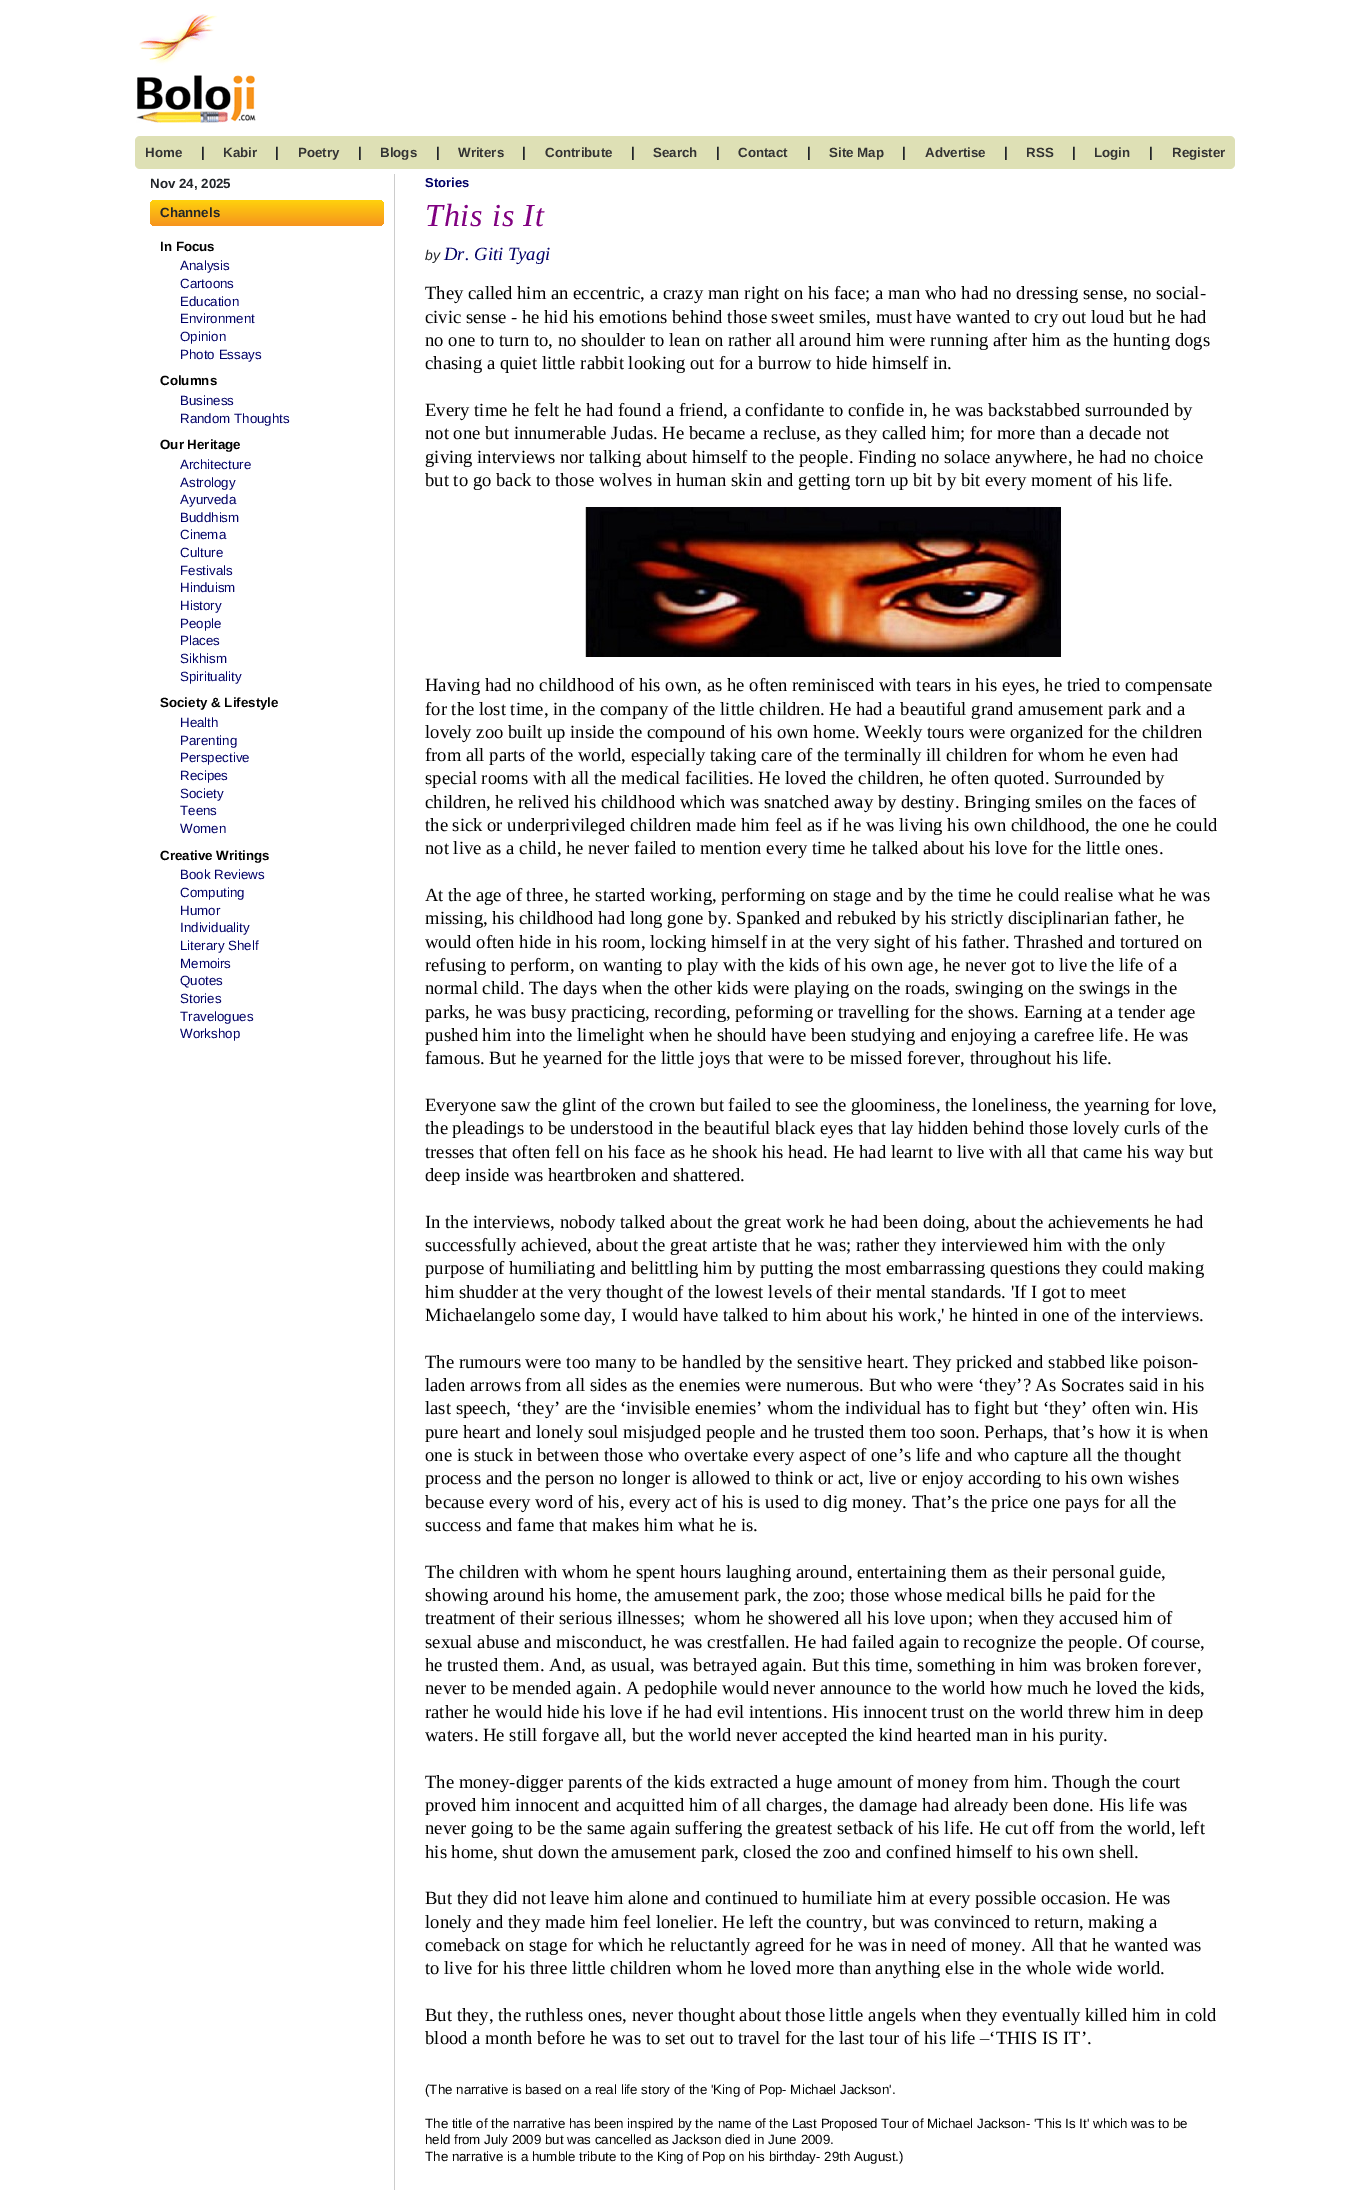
%!PS
<< /PageSize [1370 2190] >> setpagedevice
/rgb { dup -16 bitshift 255 div exch dup -8 bitshift 255 and 255 div exch 255 and 255 div setrgbcolor } def
/font { [ exch dup neg 0 0 3 -1 roll 0 0 ] selectfont } def
/text { moveto show } def
/roundrect { 5 dict begin { /r /h /w /y /x } { exch def } forall
  x r add y moveto x w add y 2 copy h add r arct x w add y h add x 1 index r arct
  x y h add x y r arct x y 2 copy exch w add exch r arct closepath end } def
/picture { 5 dict begin { /h /w /y /x /name } { exch def } forall
  gsave x y translate w h scale
  w h 8 [w 0 0 h 0 0] name (r) file false 3 colorimage grestore end } def
0 2190 translate 1 -1 scale
4 setmiterlimit
/s1 { /LiberationSans-Bold 13.33 font 16#333333 rgb } def
/s2 { /LiberationSans-Bold 14 font 16#212529 rgb } def
/s3 { /LiberationSans-Bold 13.33 font 16#212529 rgb } def
/s4 { /LiberationSans-Bold 13.33 font 16#000000 rgb } def
/s5 { /LiberationSans-Regular 13.33 font 16#000066 rgb } def
/s6 { /LiberationSans-Bold 13 font 16#000066 rgb } def
/s7 { /LiberationSans-Italic 14 font 16#212529 rgb } def
/s8 { /LiberationSerif-Italic 18.65 font 16#000066 rgb } def
/s9 { /LiberationSerif-Regular 18.65 font 16#000000 rgb } def
/s10 { /LiberationSans-Regular 13.33 font 16#000000 rgb } def
16#FFFFFF rgb
0 0 1370 2190 rectfill
(pic1.raw) 136 14 120 109 picture
16#DEE0B5 rgb
135 136 1100 33 5 roundrect fill
s1
(Home) 145 157 text
s2
(|) 201 157 text
s1
(Kabir) 223 157 text
s2
(|) 275 157 text
s1
(Poetry) 298 157 text
s2
(|) 358 157 text
s1
(Blogs) 380 157 text
s2
(|) 436 157 text
s1
(Writers) 458 157 text
s2
(|) 522 157 text
s1
(Contribute) 545 157 text
s2
(|) 631 157 text
s1
(Search) 653 157 text
s2
(|) 716 157 text
s1
(Contact) 738 157 text
s2
(|) 807 157 text
s1
(Site Map) 829 157 text
s2
(|) 902 157 text
s1
(Advertise) 925 157 text
s2
(|) 1004 157 text
s1
(RSS) 1026 157 text
s2
(|) 1072 157 text
s1
(Login) 1094 157 text
s2
(|) 1149 157 text
s1
(Register) 1172 157 text
16#CCCCCC rgb
394 174 1 2016 rectfill
s3
(Nov 24, 2025) 150 188 text
gsave 150 200 234 26 5 roundrect clip newpath
<< /ShadingType 2 /ColorSpace /DeviceRGB /Coords [267 200 267 226] /Extend [true true] /Function << /FunctionType 2 /Domain [0 1] /C0 [1 0.824 0.047] /C1 [0.965 0.58 0.118] /N 1 >> >> shfill grestore
(Channels) 160 217 text
s4
(In Focus) 160 251 text
s5
(Analysis) 180 270 text
(Cartoons) 180 288 text
(Education) 180 306 text
(Environment) 180 323 text
(Opinion) 180 341 text
(Photo Essays) 180 359 text
s4
(Columns) 160 385 text
s5
(Business) 180 405 text
(Random Thoughts) 180 423 text
s4
(Our Heritage) 160 449 text
s5
(Architecture) 180 469 text
(Astrology) 180 487 text
(Ayurveda) 180 504 text
(Buddhism) 180 522 text
(Cinema) 180 539 text
(Culture) 180 557 text
(Festivals) 180 575 text
(Hinduism) 180 592 text
(History) 180 610 text
(People) 180 628 text
(Places) 180 645 text
(Sikhism) 180 663 text
(Spirituality) 180 681 text
s4
(Society & Lifestyle) 160 707 text
s5
(Health) 180 727 text
(Parenting) 180 745 text
(Perspective) 180 762 text
(Recipes) 180 780 text
(Society) 180 798 text
(Teens) 180 815 text
(Women) 180 833 text
s4
(Creative Writings) 160 860 text
s5
(Book Reviews) 180 879 text
(Computing) 180 897 text
(Humor) 180 915 text
(Individuality) 180 932 text
(Literary Shelf) 180 950 text
(Memoirs) 180 968 text
(Quotes) 180 985 text
(Stories) 180 1003 text
(Travelogues) 180 1021 text
(Workshop) 180 1038 text
s6
(Stories) 425 187 text
/LiberationSerif-Italic 32 font
16#800080 rgb
425 226 moveto 0.75 0 (This is It) ashow
s7
(by) 425 260 text
s8
(Dr. Giti Tyagi) 444 260 text
s9
(They called him an eccentric, a crazy man right on his face; a man who had no dressing sense, no social-) 425 299 text
(civic sense - he hid his emotions behind those sweet smiles, must have wanted to cry out loud but he had) 425 323 text
(no one to turn to, no shoulder to lean on rather all around him were running after him as the hunting dogs) 425 346 text
(chasing a quiet little rabbit looking out for a burrow to hide himself in.) 425 369 text
(Every time he felt he had found a friend, a confidante to confide in, he was backstabbed surrounded by) 425 416 text
(not one but innumerable Judas. He became a recluse, as they called him; for more than a decade not) 425 439 text
(giving interviews nor talking about himself to the people. Finding no solace anywhere, he had no choice) 425 463 text
(but to go back to those wolves in human skin and getting torn up bit by bit every moment of his life.) 425 486 text
(pic2.raw) 585 507 476 150 picture
(Having had no childhood of his own, as he often reminisced with tears in his eyes, he tried to compensate) 425 691 text
(for the lost time, in the company of the little children. He had a beautiful grand amusement park and a) 425 715 text
(lovely zoo built up inside the compound of his own home. Weekly tours were organized for the children) 425 738 text
(from all parts of the world, especially taking care of the terminally ill children for whom he even had) 425 761 text
(special rooms with all the medical facilities. He loved the children, he often quoted. Surrounded by) 425 784 text
(children, he relived his childhood which was snatched away by destiny. Bringing smiles on the faces of) 425 808 text
(the sick or underprivileged children made him feel as if he was living his own childhood, the one he could) 425 831 text
(not live as a child, he never failed to mention every time he talked about his love for the little ones.) 425 854 text
(At the age of three, he started working, performing on stage and by the time he could realise what he was) 425 901 text
(missing, his childhood had long gone by. Spanked and rebuked by his strictly disciplinarian father, he) 425 924 text
(would often hide in his room, locking himself in at the very sight of his father. Thrashed and tortured on) 425 948 text
(refusing to perform, on wanting to play with the kids of his own age, he never got to live the life of a) 425 971 text
(normal child. The days when the other kids were playing on the roads, swinging on the swings in the) 425 994 text
(parks, he was busy practicing, recording, peforming or travelling for the shows. Earning at a tender age) 425 1018 text
(pushed him into the limelight when he should have been studying and enjoying a carefree life. He was) 425 1041 text
(famous. But he yearned for the little joys that were to be missed forever, throughout his life.) 425 1064 text
(Everyone saw the glint of the crown but failed to see the gloominess, the loneliness, the yearning for love,) 425 1111 text
(the pleadings to be understood in the beautiful black eyes that lay hidden behind those lovely curls of the) 425 1134 text
(tresses that often fell on his face as he shook his head. He had learnt to live with all that came his way but) 425 1158 text
(deep inside was heartbroken and shattered.) 425 1181 text
(In the interviews, nobody talked about the great work he had been doing, about the achievements he had) 425 1228 text
(successfully achieved, about the great artiste that he was; rather they interviewed him with the only) 425 1251 text
(purpose of humiliating and belittling him by putting the most embarrassing questions they could making) 425 1274 text
(him shudder at the very thought of the lowest levels of their mental standards. 'If I got to meet) 425 1298 text
(Michaelangelo some day, I would have talked to him about his work,' he hinted in one of the interviews.) 425 1321 text
(The rumours were too many to be handled by the sensitive heart. They pricked and stabbed like poison-) 425 1368 text
(laden arrows from all sides as the enemies were numerous. But who were ‘they’? As Socrates said in his) 425 1391 text
(last speech, ‘they’ are the ‘invisible enemies’ whom the individual has to fight but ‘they’ often win. His) 425 1414 text
(pure heart and lonely soul misjudged people and he trusted them too soon. Perhaps, that’s how it is when) 425 1438 text
(one is stuck in between those who overtake every aspect of one’s life and who capture all the thought) 425 1461 text
(process and the person no longer is allowed to think or act, live or enjoy according to his own wishes) 425 1484 text
(because every word of his, every act of his is used to dig money. That’s the price one pays for all the) 425 1508 text
(success and fame that makes him what he is.) 425 1531 text
(The children with whom he spent hours laughing around, entertaining them as their personal guide,) 425 1578 text
(showing around his home, the amusement park, the zoo; those whose medical bills he paid for the) 425 1601 text
(treatment of their serious illnesses;  whom he showered all his love upon; when they accused him of) 425 1624 text
(sexual abuse and misconduct, he was crestfallen. He had failed again to recognize the people. Of course,) 425 1648 text
(he trusted them. And, as usual, was betrayed again. But this time, something in him was broken forever,) 425 1671 text
(never to be mended again. A pedophile would never announce to the world how much he loved the kids,) 425 1694 text
(rather he would hide his love if he had evil intentions. His innocent trust on the world threw him in deep) 425 1718 text
(waters. He still forgave all, but the world never accepted the kind hearted man in his purity.) 425 1741 text
(The money-digger parents of the kids extracted a huge amount of money from him. Though the court) 425 1788 text
(proved him innocent and acquitted him of all charges, the damage had already been done. His life was) 425 1811 text
(never going to be the same again suffering the greatest setback of his life. He cut off from the world, left) 425 1834 text
(his home, shut down the amusement park, closed the zoo and confined himself to his own shell.) 425 1858 text
(But they did not leave him alone and continued to humiliate him at every possible occasion. He was) 425 1904 text
(lonely and they made him feel lonelier. He left the country, but was convinced to return, making a) 425 1928 text
(comeback on stage for which he reluctantly agreed for he was in need of money. All that he wanted was) 425 1951 text
(to live for his three little children whom he loved more than anything else in the whole wide world.) 425 1974 text
(But they, the ruthless ones, never thought about those little angels when they eventually killed him in cold) 425 2021 text
(blood a month before he was to set out to travel for the last tour of his life –‘THIS IS IT’.) 425 2044 text
s10
(\(The narrative is based on a real life story of the 'King of Pop- Michael Jackson'.) 425 2094 text
(The title of the narrative has been inspired by the name of the Last Proposed Tour of Michael Jackson- 'This Is It' which was to be) 425 2128 text
(held from July 2009 but was cancelled as Jackson died in June 2009.) 425 2144 text
(The narrative is a humble tribute to the King of Pop on his birthday- 29th August.\)) 425 2161 text
showpage
